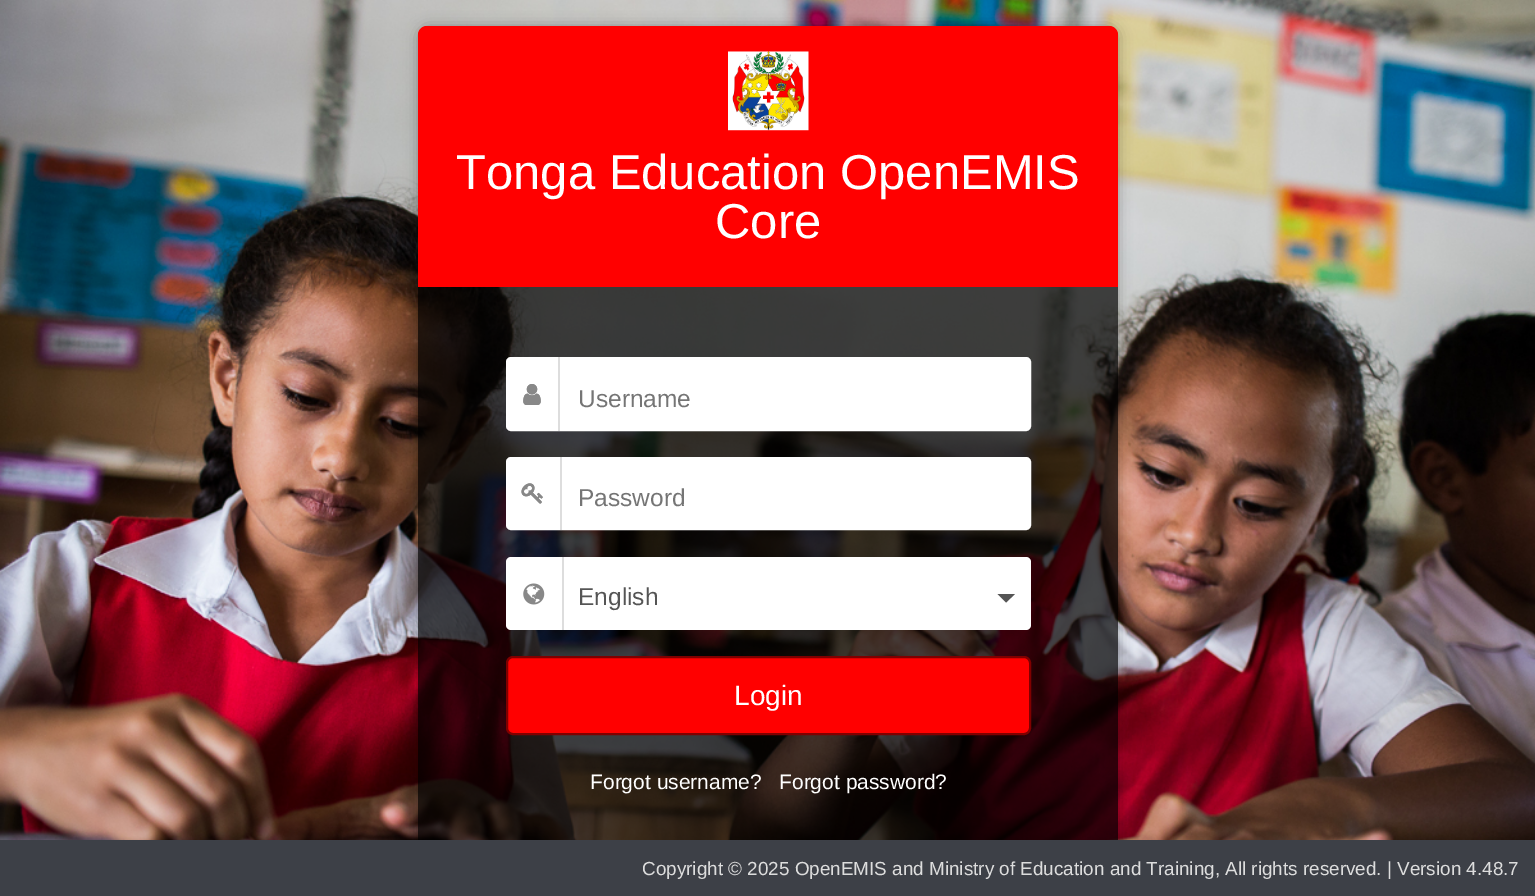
%!PS
<< /PageSize [1535 896] /PageUsesTransparency true >> setpagedevice
/rgb { dup -16 bitshift 255 div exch dup -8 bitshift 255 and 255 div exch 255 and 255 div setrgbcolor } def
/font { [ exch dup neg 0 0 3 -1 roll 0 0 ] selectfont } def
/text { moveto show } def
/alpha { dup .setfillconstantalpha .setstrokeconstantalpha } def
/roundrect { 5 dict begin { /r /h /w /y /x } { exch def } forall
  x r add y moveto x w add y 2 copy h add r arct x w add y h add x 1 index r arct
  x y h add x y r arct x y 2 copy exch w add exch r arct closepath end } def
/shadow { 12 dict begin { /a /b /q /h /w /y /x } { exch def } forall gsave /was 0 def
  9 -2 -9 { dup b mul 4 div /e exch def 1 sub .425 mul 2.718 exch exp 1 add a .99 .min exch div /now exch def
    1 1 now sub 1 was sub div sub alpha /was now def
    w h .min e 2 mul add 0 gt { x e sub y e sub w e 2 mul add h e 2 mul add
      q e add b .6 mul add w h .min 2 div e add .min 0 .max roundrect fill } if } for grestore end } def
/picture { 5 dict begin { /h /w /y /x /name } { exch def } forall
  gsave x y translate w h scale
  w h 8 [w 0 0 h 0 0] name (r) file false 3 colorimage grestore end } def
0 .pushpdf14devicefilter
0 896 translate 1 -1 scale
4 setmiterlimit
/s1 { /LiberationSans-Regular 49 font 16#FFFFFF rgb } def
/s2 { /LiberationSans-Regular 24.5 font 16#757575 rgb } def
/s3 { /LiberationSans-Regular 24.5 font 16#555555 rgb } def
/s4 { /LiberationSans-Regular 28 font 16#FFFFFF rgb } def
/s5 { /LiberationSans-Regular 21 font 16#FFFFFF rgb } def
/s6 { /LiberationSans-Regular 18.9 font 16#DDDDDD rgb } def
16#FFFFFF rgb
0 0 1535 896 rectfill
(pic1.raw) 0 0 1535 840 picture
gsave
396 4 moveto 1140 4 lineto 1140 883 lineto 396 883 lineto closepath 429 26 moveto 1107 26 lineto 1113 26 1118 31 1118 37 curveto 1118 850 lineto 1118 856 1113 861 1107 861 curveto 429 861 lineto 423 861 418 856 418 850 curveto 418 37 lineto 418 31 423 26 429 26 curveto closepath eoclip newpath
16#000000 rgb
418 26 700 835 11 7 0.3 shadow
grestore
0.7 alpha
16#000000 rgb
418 26 700 835 11 roundrect fill
1 alpha
16#FF0000 rgb
427 26 moveto 1109 26 lineto 1114 26 1118 30 1118 35 curveto 1118 287 lineto 418 287 lineto 418 35 lineto 418 30 422 26 427 26 curveto closepath fill
(pic2.raw) 728 51 81 80 picture
s1
(Tonga Education OpenEMIS) 456 189 text
(Core) 715 238 text
507 358 523 72 4 roundrect gsave fill grestore
2 setlinewidth
stroke
(pic4.raw) 523 384 18 21 picture
(pic3.raw) 523 384 18 21 picture
16#DDDDDD rgb
558 357 2 74 rectfill
s2
(Username) 578 407 text
16#FFFFFF rgb
507 458 523 71 4 roundrect gsave fill grestore
stroke
(pic6.raw) 521 483 22 21 picture
(pic5.raw) 521 483 22 21 picture
16#DDDDDD rgb
560 457 2 73 rectfill
s2
(Password) 578 506 text
16#FFFFFF rgb
506 557 525 73 5 roundrect fill
16#DDDDDD rgb
562 557 2 73 rectfill
(pic7.raw) 523 583 22 22 picture
s3
(English) 578 605 text
997.5 594 moveto 1015 594 lineto 1006 602.5 lineto closepath fill
16#FF0000 rgb
507 657 523 77 6 roundrect gsave fill grestore
16#7F0000 rgb
stroke
s4
(Login) 734 705 text
s5
(Forgot username?) 590 789 text
(Forgot password?) 779 789 text
16#3D4047 rgb
0 840 1535 56 rectfill
s6
(Copyright © 2025 OpenEMIS and Ministry of Education and Training, All rights reserved. | Version 4.48.7) 642 875 text
.poppdf14devicefilter showpage
